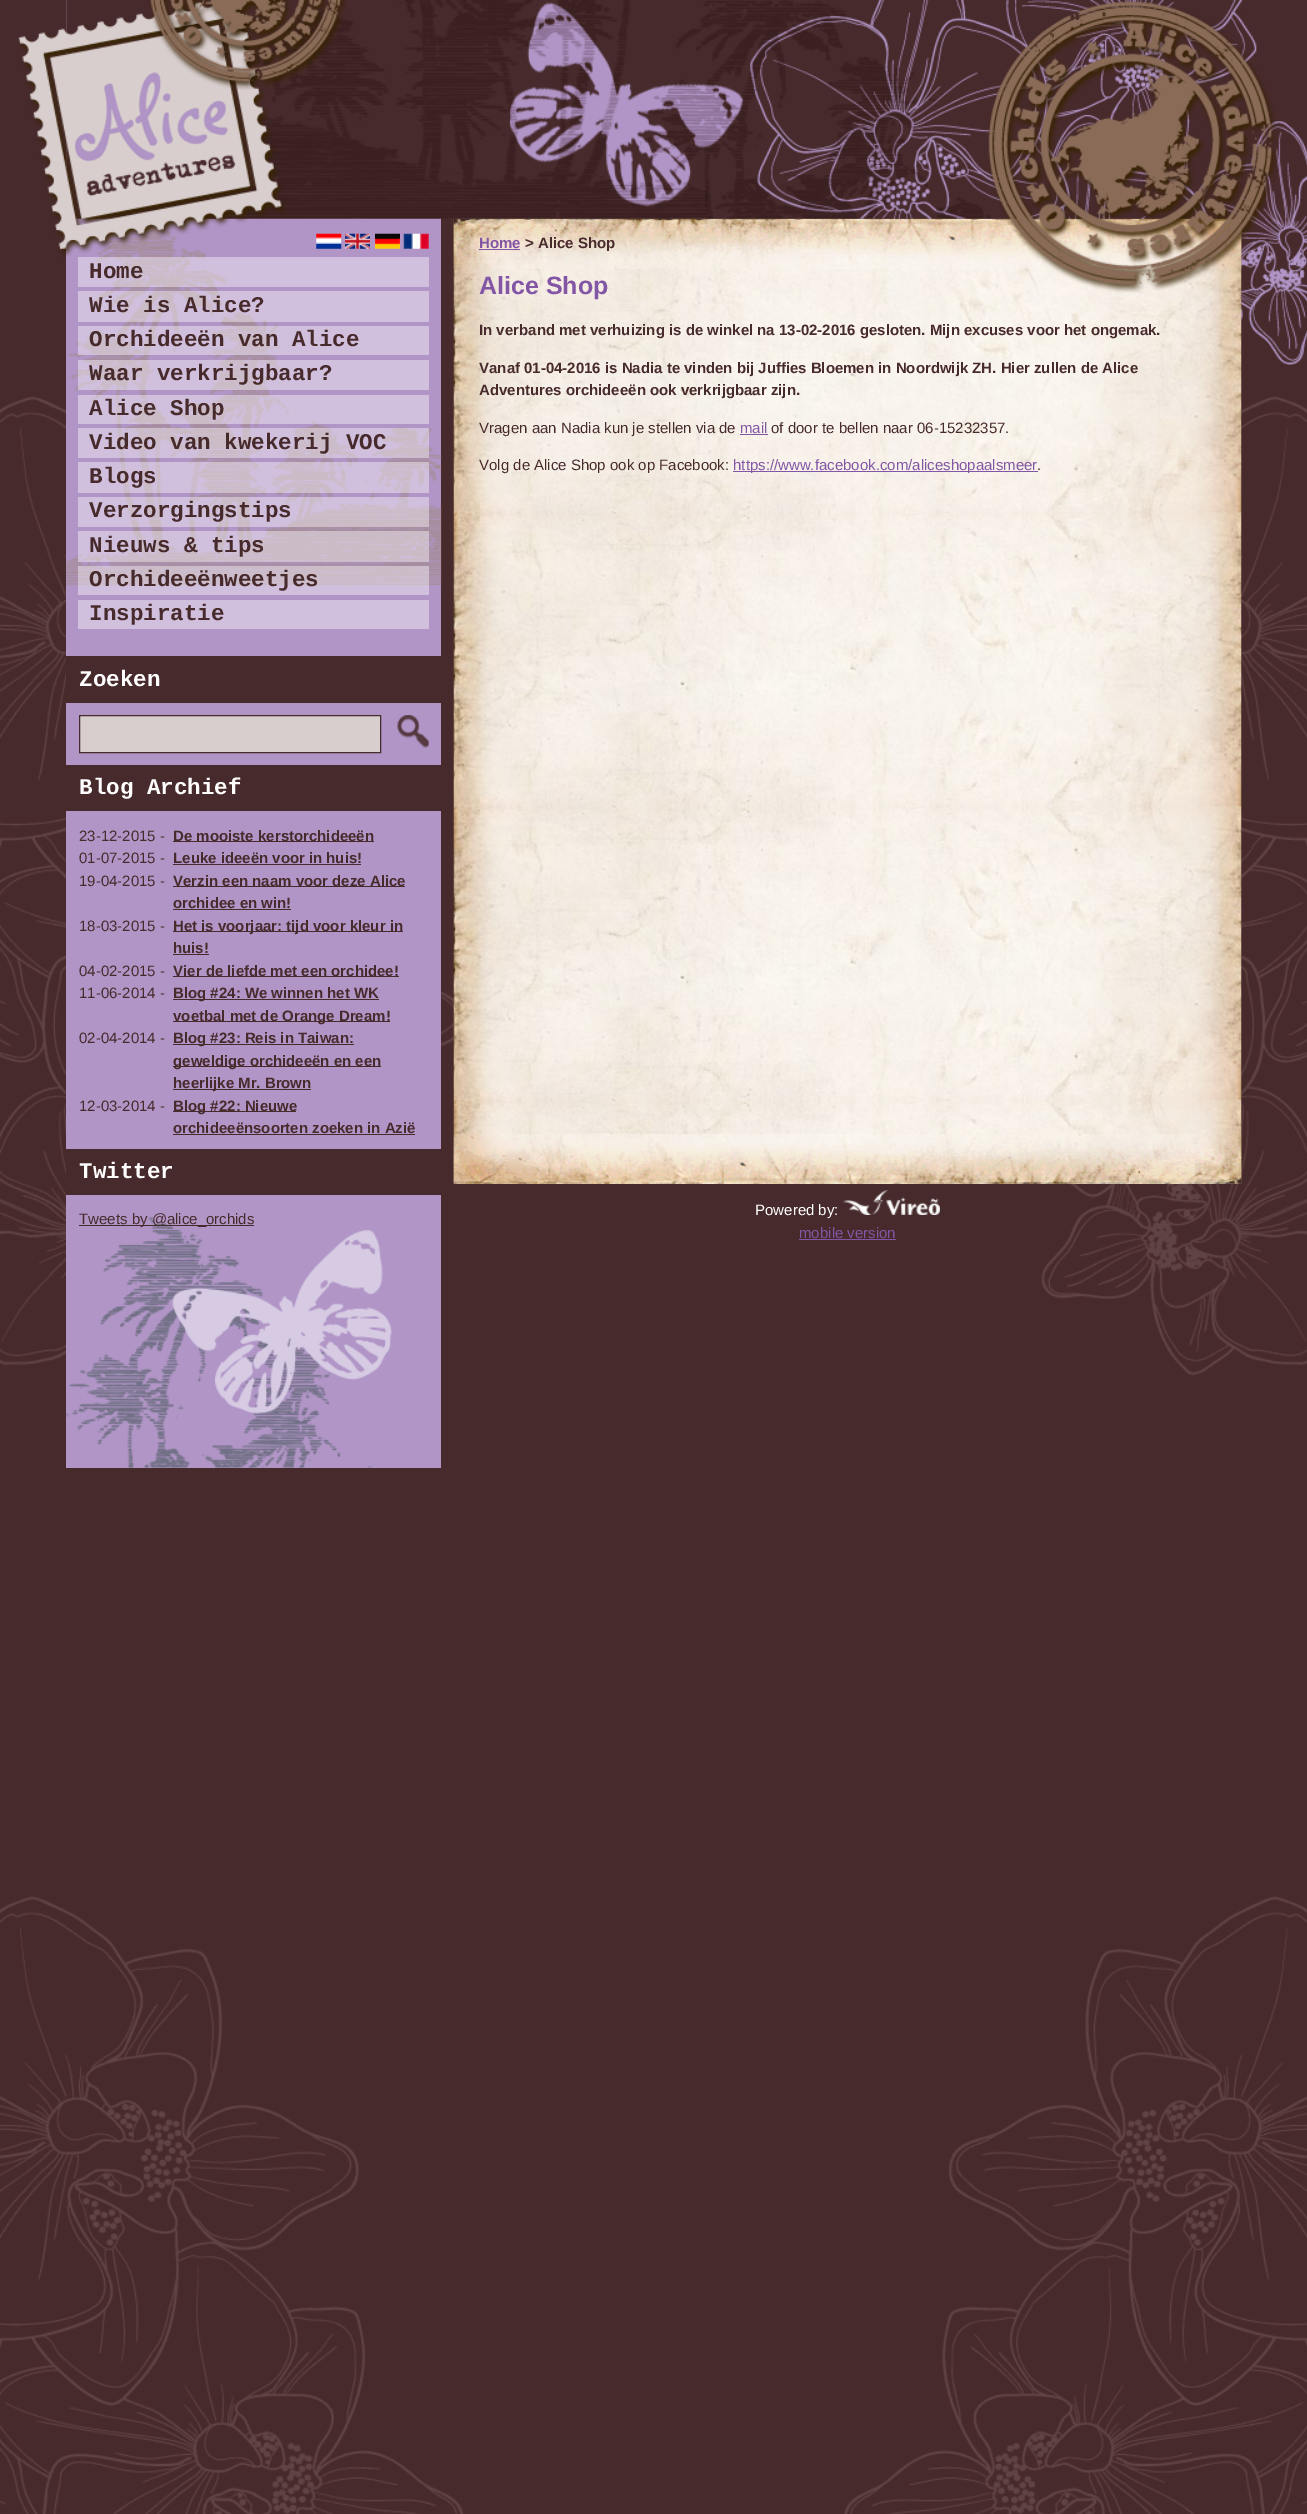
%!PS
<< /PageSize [1307 2514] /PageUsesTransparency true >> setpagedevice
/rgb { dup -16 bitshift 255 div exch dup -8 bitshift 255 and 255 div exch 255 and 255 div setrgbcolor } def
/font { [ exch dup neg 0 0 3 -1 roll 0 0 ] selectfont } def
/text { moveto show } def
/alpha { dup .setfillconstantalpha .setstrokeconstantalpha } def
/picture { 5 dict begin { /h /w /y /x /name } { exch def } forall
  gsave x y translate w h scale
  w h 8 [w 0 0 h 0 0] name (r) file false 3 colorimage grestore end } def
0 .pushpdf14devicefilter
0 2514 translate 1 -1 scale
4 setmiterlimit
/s1 { /LiberationMono-Bold 22.5 font 16#472A2B rgb } def
/s2 { /LiberationMono-Bold 22.5 font 16#FFFFFF rgb } def
/s3 { /LiberationSans-Regular 15 font 16#472A2B rgb } def
/s4 { /LiberationSans-Bold 15 font 16#472A2B rgb } def
/s5 { /LiberationSans-Bold 15 font 16#8256A5 rgb } def
/s6 { /LiberationSans-Bold 25 font 16#8256A5 rgb } def
/s7 { /LiberationSans-Regular 15 font 16#8256A5 rgb } def
/s8 { /LiberationSans-Regular 15 font 16#FFFFFF rgb } def
16#472A2B rgb
0 0 1307 2514 rectfill
(pic1.raw) 0 396 1307 2118 picture
(pic2.raw) 1084 0 223 365 picture
16#B095C6 rgb
66 0 375 1468 rectfill
(pic13.raw) 453 218 789 966 picture
(pic14.raw) 453 218 789 51 picture
(pic3.raw) 66 0 1176 219 picture
(pic7.raw) 66 224 376 362 picture
(pic4.raw) 18 0 329 257 picture
(pic5.raw) 988 1 290 292 picture
(pic6.raw) 66 1217 326 251 picture
(pic8.raw) 316 233 26 16 picture
(pic9.raw) 345 233 25 16 picture
(pic10.raw) 375 233 25 16 picture
(pic11.raw) 403 233 26 16 picture
0.4 alpha
16#FFFFFF rgb
78 257 351 30 rectfill
1 alpha
s1
(Home) 89 278 text
0.4 alpha
16#FFFFFF rgb
78 291 351 31 rectfill
1 alpha
s1
(Wie is Alice?) 89 312 text
0.4 alpha
16#FFFFFF rgb
78 326 351 29 rectfill
1 alpha
s1
(Orchideeën van Alice) 89 346 text
0.4 alpha
16#FFFFFF rgb
78 360 351 30 rectfill
1 alpha
s1
(Waar verkrijgbaar?) 89 380 text
0.4 alpha
16#FFFFFF rgb
78 395 351 29 rectfill
1 alpha
s1
(Alice Shop) 89 415 text
0.4 alpha
16#FFFFFF rgb
78 428 351 30 rectfill
1 alpha
s1
(Video van kwekerij VOC) 89 449 text
0.4 alpha
16#FFFFFF rgb
78 462 351 31 rectfill
1 alpha
s1
(Blogs) 89 483 text
0.4 alpha
16#FFFFFF rgb
78 497 351 30 rectfill
1 alpha
s1
(Verzorgingstips) 89 517 text
0.4 alpha
16#FFFFFF rgb
78 531 351 31 rectfill
1 alpha
s1
(Nieuws & tips) 89 552 text
0.4 alpha
16#FFFFFF rgb
78 566 351 29 rectfill
1 alpha
s1
(Orchideeënweetjes) 89 586 text
16#D0BFDD rgb
78 600 351 29 rectfill
s1
(Inspiratie) 89 620 text
66 656 375 47 rectfill
s2
(Zoeken) 79 686 text
16#D8CECE rgb
79.5 715.5 moveto 380.5 715.5 lineto 380.5 752.5 lineto 79.5 752.5 lineto closepath gsave fill grestore
16#472A2B rgb
stroke
(pic12.raw) 397 715 32 33 picture
66 765 375 46 rectfill
s2
(Blog Archief) 79 794 text
s3
(23-12-2015 -) 79 841 text
173 841 201 1 rectfill
s4
(De mooiste kerstorchideeën) 173 841 text
s3
(01-07-2015 -) 79 863 text
s4
(Leuke ideeën voor in huis!) 173 863 text
173 864 188 1 rectfill
s3
(19-04-2015 -) 79 886 text
173 886 232 1 rectfill
s4
(Verzin een naam voor deze Alice) 173 886 text
(orchidee en win!) 173 908 text
173 909 118 1 rectfill
s3
(18-03-2015 -) 79 931 text
173 931 230 1 rectfill
s4
(Het is voorjaar: tijd voor kleur in) 173 931 text
(huis!) 173 953 text
173 954 36 1 rectfill
s3
(04-02-2015 -) 79 976 text
173 976 226 1 rectfill
s4
(Vier de liefde met een orchidee!) 173 976 text
s3
(11-06-2014 -) 79 998 text
173 999 206 1 rectfill
s4
(Blog #24: We winnen het WK) 173 998 text
173 1021 217 1 rectfill
(voetbal met de Orange Dream!) 173 1021 text
s3
(02-04-2014 -) 79 1043 text
173 1044 181 1 rectfill
s4
(Blog #23: Reis in Taiwan:) 173 1043 text
173 1066 208 1 rectfill
(geweldige orchideeën en een) 173 1066 text
173 1089 138 1 rectfill
(heerlijke Mr. Brown) 173 1088 text
s3
(12-03-2014 -) 79 1111 text
173 1111 123 1 rectfill
s4
(Blog #22: Nieuwe) 173 1111 text
(orchideeënsoorten zoeken in Azië) 173 1133 text
173 1134 242 1 rectfill
66 1149 375 46 rectfill
s2
(Twitter) 79 1178 text
16#472A2B rgb
79 1225 175 1 rectfill
s3
(Tweets by @alice_orchids) 79 1224 text
(pic15.raw) 453 1133 789 51 picture
s5
(Home) 479 248 text
479 249 41 1 rectfill
s4
(> Alice Shop) 525 248 text
s6
(Alice Shop) 479 294 text
s4
(In verband met verhuizing is de winkel na 13-02-2016 gesloten. Mijn excuses voor het ongemak.) 479 335 text
(Vanaf 01-04-2016 is Nadia te vinden bij Juffies Bloemen in Noordwijk ZH. Hier zullen de Alice) 479 373 text
(Adventures orchideeën ook verkrijgbaar zijn.) 479 395 text
s3
(Vragen aan Nadia kun je stellen via de) 479 433 text
s7
(mail) 740 433 text
740 434 28 1 rectfill
s3
(of door te bellen naar 06-15232357.) 771 433 text
(Volg de Alice Shop ook op Facebook:) 479 470 text
16#8256A5 rgb
733 471 305 1 rectfill
(https://www.facebook.com/aliceshopaalsmeer) 733 470 text
s3
(.) 1037 470 text
s8
(Powered by:) 755 1215 text
(pic16.raw) 842 1190 98 25 picture
s7
(mobile version) 799 1238 text
799 1239 97 1 rectfill
.poppdf14devicefilter showpage
